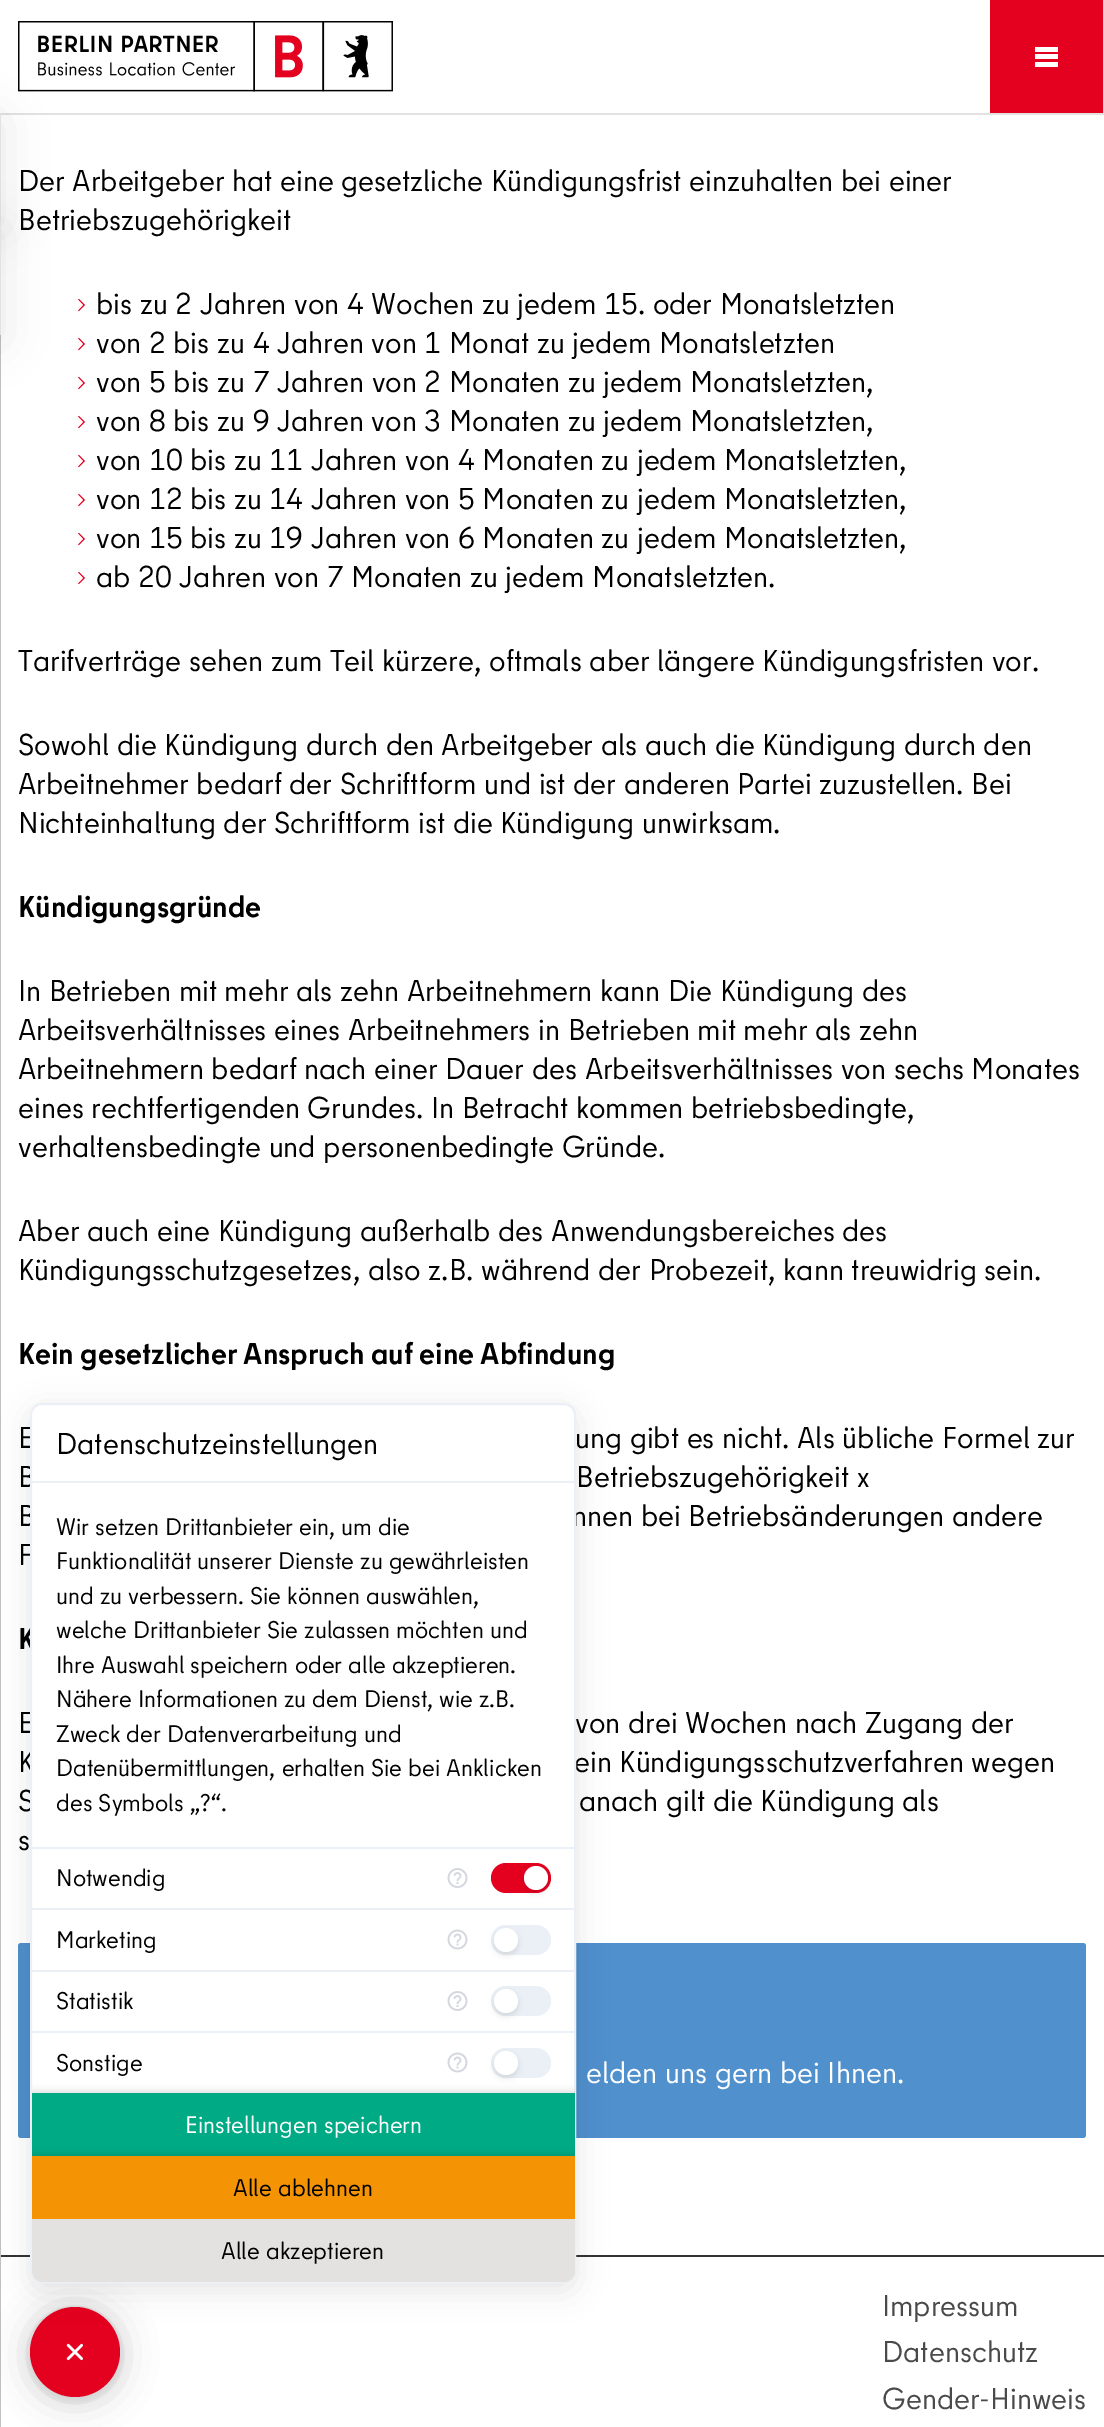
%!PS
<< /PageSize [1104 2427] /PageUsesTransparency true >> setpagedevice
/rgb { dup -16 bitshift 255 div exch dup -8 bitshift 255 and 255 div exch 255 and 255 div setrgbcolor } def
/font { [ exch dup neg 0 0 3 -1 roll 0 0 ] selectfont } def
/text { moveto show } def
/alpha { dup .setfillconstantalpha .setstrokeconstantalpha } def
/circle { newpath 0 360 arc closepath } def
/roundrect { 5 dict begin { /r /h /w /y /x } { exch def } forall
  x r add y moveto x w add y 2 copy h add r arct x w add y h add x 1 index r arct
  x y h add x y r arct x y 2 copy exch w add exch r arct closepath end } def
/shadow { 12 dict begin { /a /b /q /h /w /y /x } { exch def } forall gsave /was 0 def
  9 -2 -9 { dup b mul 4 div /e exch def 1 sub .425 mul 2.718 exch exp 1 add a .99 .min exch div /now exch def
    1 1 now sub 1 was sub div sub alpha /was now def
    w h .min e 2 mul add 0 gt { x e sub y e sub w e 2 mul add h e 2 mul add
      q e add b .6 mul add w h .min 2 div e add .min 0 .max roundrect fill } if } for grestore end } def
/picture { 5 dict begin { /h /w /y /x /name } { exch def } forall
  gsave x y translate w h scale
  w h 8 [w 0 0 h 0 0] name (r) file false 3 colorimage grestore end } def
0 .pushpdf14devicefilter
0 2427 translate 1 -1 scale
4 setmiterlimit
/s1 { /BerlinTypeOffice-Regular 30 font 16#000000 rgb } def
/s2 { /BerlinTypeOffice-Bold 30 font 16#000000 rgb } def
/s3 { /BerlinTypeOffice-Regular 30 font 16#FFFFFF rgb } def
/s4 { /BerlinTypeOffice-Regular 30 font 16#4A4A4A rgb } def
/s5 { /BerlinTypeOffice-Regular 24 font 16#000000 rgb } def
/s6 { /BerlinTypeOffice-Regular 24 font 16#FFFFFF rgb } def
16#FFFFFF rgb
0 0 1104 2427 rectfill
16#E3E2E0 rgb
0 113 1104 2 rectfill
(pic1.raw) 18 21 375 71 picture
16#E4001F rgb
990 0 113 113 rectfill
16#E3E2E0 rgb
1103 0 1 113 rectfill
16#FFFFFF rgb
1035 47 23 5 rectfill
1035 54 23 5 rectfill
1035 62 23 5 rectfill
16#000000 rgb
-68 120 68 108 0 22.5 0.1 shadow
16#E3E2E0 rgb
0 114 1 108 rectfill
16#333333 rgb
0 2255 1104 2 rectfill
16#C1C1C1 rgb
0 335 1 2092 rectfill
16#000000 rgb
-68 228 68 113 0 22.5 0.1 shadow
16#E3E2E0 rgb
0 222 1 113 rectfill
s1
(Der Arbeitgeber hat eine gesetzliche Kündigungsfrist einzuhalten bei einer) 18 191 text
(Betriebszugehörigkeit) 18 230 text
(pic2.raw) 78 299 7 13 picture
(bis zu 2 Jahren von 4 Wochen zu jedem 15. oder Monatsletzten) 96 314 text
(pic2.raw) 78 338 7 13 picture
(von 2 bis zu 4 Jahren von 1 Monat zu jedem Monatsletzten) 96 353 text
(pic2.raw) 78 377 7 13 picture
(von 5 bis zu 7 Jahren von 2 Monaten zu jedem Monatsletzten,) 96 392 text
(pic2.raw) 78 416 7 13 picture
(von 8 bis zu 9 Jahren von 3 Monaten zu jedem Monatsletzten,) 96 431 text
(pic2.raw) 78 455 7 13 picture
(von 10 bis zu 11 Jahren von 4 Monaten zu jedem Monatsletzten,) 96 470 text
(pic2.raw) 78 494 7 13 picture
(von 12 bis zu 14 Jahren von 5 Monaten zu jedem Monatsletzten,) 96 509 text
(pic2.raw) 78 533 7 13 picture
(von 15 bis zu 19 Jahren von 6 Monaten zu jedem Monatsletzten,) 96 548 text
(pic2.raw) 78 572 7 13 picture
(ab 20 Jahren von 7 Monaten zu jedem Monatsletzten.) 96 587 text
(Tarifverträge sehen zum Teil kürzere, oftmals aber längere Kündigungsfristen vor.) 18 671 text
(Sowohl die Kündigung durch den Arbeitgeber als auch die Kündigung durch den) 18 755 text
(Arbeitnehmer bedarf der Schriftform und ist der anderen Partei zuzustellen. Bei) 18 794 text
(Nichteinhaltung der Schriftform ist die Kündigung unwirksam.) 18 833 text
s2
(Kündigungsgründe) 18 917 text
s1
(In Betrieben mit mehr als zehn Arbeitnehmern kann Die Kündigung des) 18 1001 text
(Arbeitsverhältnisses eines Arbeitnehmers in Betrieben mit mehr als zehn) 18 1040 text
(Arbeitnehmern bedarf nach einer Dauer des Arbeitsverhältnisses von sechs Monates) 18 1079 text
(eines rechtfertigenden Grundes. In Betracht kommen betriebsbedingte,) 18 1118 text
(verhaltensbedingte und personenbedingte Gründe.) 18 1157 text
(Aber auch eine Kündigung außerhalb des Anwendungsbereiches des) 18 1241 text
(Kündigungsschutzgesetzes, also z.B. während der Probezeit, kann treuwidrig sein.) 18 1280 text
s2
(Kein gesetzlicher Anspruch auf eine Abfindung) 18 1364 text
s1
(E) 18 1448 text
(ung gibt es nicht. Als übliche Formel zur) 575 1448 text
(B) 18 1487 text
(Betriebszugehörigkeit x) 576 1487 text
(B) 18 1526 text
(nnen bei Betriebsänderungen andere) 572 1526 text
(F) 18 1565 text
s2
(K) 18 1649 text
s1
(E) 18 1733 text
(von drei Wochen nach Zugang der) 575 1733 text
(K) 18 1772 text
(ein Kündigungsschutzverfahren wegen) 574 1772 text
(S) 18 1811 text
(anach gilt die Kündigung als) 579 1811 text
(s) 18 1850 text
16#4F90CD rgb
18 1943 1068 195 3 roundrect fill
s3
(elden uns gern bei Ihnen.) 586 2083 text
s4
(Impressum) 882 2316 text
(Datenschutz) 882 2362 text
(Gender-Hinweis) 882 2409 text
16#000000 rgb
30 2310 90 90 45 18 0.2 shadow
30 2309 90 90 45 4.5 0.1 shadow
16#E4001F rgb
75 2352 45 circle fill
16#000000 rgb
30 1410 546 881 12 15 0.1 shadow
16#FFFFFF rgb
31 1404 544 878 11 roundrect gsave fill grestore
16#EAF0F6 rgb
2 setlinewidth
stroke
s1
(Datenschutzeinstellungen) 56 1454 text
16#EAF0F6 rgb
32 1481 543 2 rectfill
s5
(Wir setzen Drittanbieter ein, um die) 56 1535 text
(Funktionalität unserer Dienste zu gewährleisten) 56 1569 text
(und zu verbessern. Sie können auswählen,) 56 1604 text
(welche Drittanbieter Sie zulassen möchten und) 56 1638 text
(Ihre Auswahl speichern oder alle akzeptieren.) 56 1673 text
(Nähere Informationen zu dem Dienst, wie z.B.) 56 1707 text
(Zweck der Datenverarbeitung und) 56 1742 text
(Datenübermittlungen, erhalten Sie bei Anklicken) 56 1776 text
(des Symbols „?“.) 56 1811 text
16#EAF0F6 rgb
32 1847 543 2 rectfill
s5
(Notwendig) 56 1886 text
(pic3.raw) 447 1868 21 20 picture
16#E4001F rgb
491 1863 60 30 15 roundrect fill
16#000000 rgb
524 1869 24 24 12 3 0.1 shadow
16#FFFFFF rgb
536 1878 12 circle fill
16#EAF0F6 rgb
32 1908 543 2 rectfill
s5
(Marketing) 56 1948 text
(pic4.raw) 447 1929 21 21 picture
16#EAF0F6 rgb
491 1925 60 30 15 roundrect fill
16#000000 rgb
494 1931 24 24 12 3 0.1 shadow
16#FFFFFF rgb
506 1940 12 circle fill
16#EAF0F6 rgb
32 1970 543 2 rectfill
s5
(Statistik) 56 2009 text
(pic3.raw) 447 1991 21 20 picture
16#EAF0F6 rgb
491 1986 60 30 15 roundrect fill
16#000000 rgb
494 1992 24 24 12 3 0.1 shadow
16#FFFFFF rgb
506 2001 12 circle fill
16#EAF0F6 rgb
32 2031 543 2 rectfill
s5
(Sonstige) 56 2071 text
(pic4.raw) 447 2052 21 21 picture
16#EAF0F6 rgb
491 2048 60 30 15 roundrect fill
16#000000 rgb
494 2054 24 24 12 3 0.1 shadow
16#FFFFFF rgb
506 2063 12 circle fill
gsave
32 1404 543 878 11 roundrect clip newpath
16#202124 rgb
32 2094 543 63 0 4.5 0.28 shadow
grestore
16#00AA84 rgb
32 2093 543 63 rectfill
s6
(Einstellungen speichern) 185 2133 text
gsave
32 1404 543 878 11 roundrect clip newpath
16#202124 rgb
32 2157 543 63 0 4.5 0.28 shadow
grestore
16#F49303 rgb
32 2156 543 63 rectfill
s5
(Alle ablehnen) 233 2196 text
16#E3E2E0 rgb
32 2219 moveto 575 2219 lineto 575 2271 lineto 575 2277 570 2282 564 2282 curveto 43 2282 lineto 37 2282 32 2277 32 2271 curveto closepath fill
s5
(Alle akzeptieren) 221 2259 text
(pic5.raw) 66 2343 17 18 picture
.poppdf14devicefilter showpage
